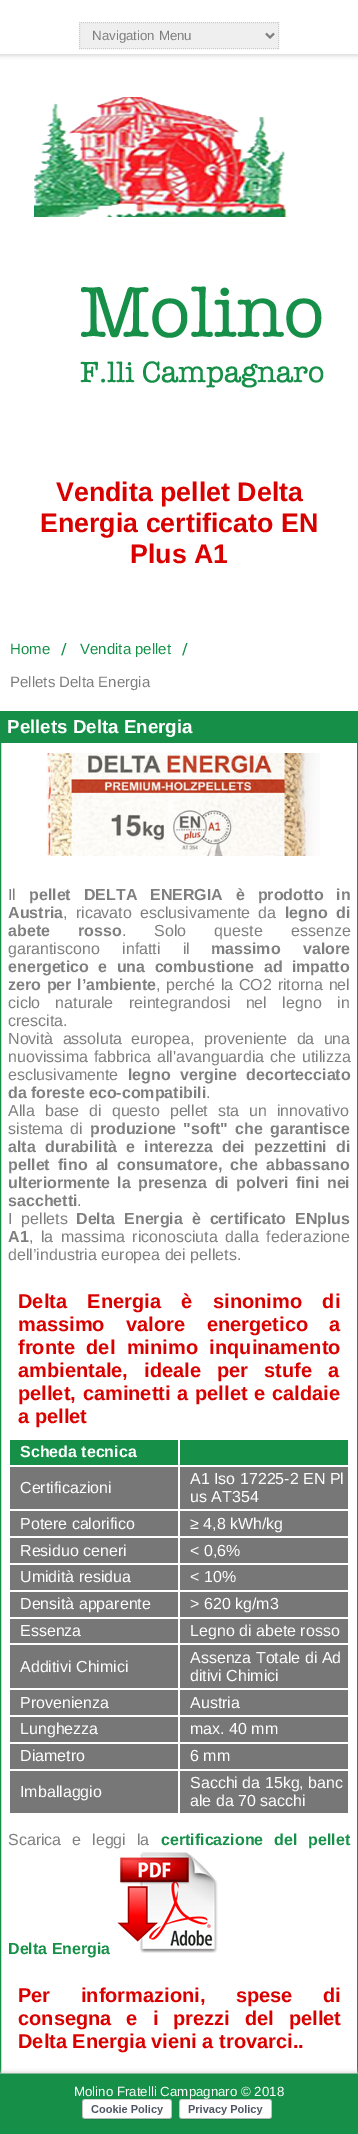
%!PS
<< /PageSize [358 2134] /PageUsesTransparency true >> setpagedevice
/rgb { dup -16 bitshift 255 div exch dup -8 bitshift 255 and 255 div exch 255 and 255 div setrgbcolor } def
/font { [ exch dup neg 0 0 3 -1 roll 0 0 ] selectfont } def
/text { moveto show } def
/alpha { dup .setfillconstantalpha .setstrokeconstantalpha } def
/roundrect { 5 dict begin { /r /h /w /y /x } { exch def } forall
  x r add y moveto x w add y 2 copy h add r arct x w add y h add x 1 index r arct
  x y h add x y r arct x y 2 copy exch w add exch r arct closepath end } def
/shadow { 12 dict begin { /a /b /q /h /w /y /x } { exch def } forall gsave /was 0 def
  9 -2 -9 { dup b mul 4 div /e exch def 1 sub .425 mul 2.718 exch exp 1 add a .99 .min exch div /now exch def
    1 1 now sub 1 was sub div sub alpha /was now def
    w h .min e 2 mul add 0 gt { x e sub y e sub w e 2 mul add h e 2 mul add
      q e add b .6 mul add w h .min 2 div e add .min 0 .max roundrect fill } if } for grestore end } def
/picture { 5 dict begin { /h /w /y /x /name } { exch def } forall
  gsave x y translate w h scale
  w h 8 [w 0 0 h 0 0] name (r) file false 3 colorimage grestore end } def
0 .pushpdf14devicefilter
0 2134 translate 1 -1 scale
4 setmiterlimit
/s1 { /LiberationSans-Regular 13.3 font 16#807F7F rgb } def
/s2 { /LiberationSans-Bold 26.75 font 16#D90000 rgb } def
/s3 { /LiberationSans-Regular 15 font 16#169049 rgb } def
/s4 { /LiberationSans-Regular 15 font 16#807F7F rgb } def
/s5 { /LiberationSans-Bold 18.75 font 16#FFFFFF rgb } def
/s6 { /LiberationSans-Regular 16 font 16#807F7F rgb } def
/s7 { /LiberationSans-Bold 16 font 16#807F7F rgb } def
/s8 { /LiberationSans-Bold 20 font 16#D90000 rgb } def
/s9 { /LiberationSans-Bold 16 font 16#FFFFFF rgb } def
/s10 { /LiberationSans-Regular 16 font 16#FFFFFF rgb } def
/s11 { /LiberationSans-Bold 16 font 16#169049 rgb } def
/s12 { /LiberationSans-Regular 13.3 font 16#FFFFFF rgb } def
16#FFFFFF rgb
0 0 358 2134 rectfill
gsave
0 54 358 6 rectclip
16#D0CFCF rgb
0 1 358 54 0 2.5 1 shadow
grestore
16#EFEFEF rgb
79 22 200 27 rectfill
16#CCCCCC rgb
[1 1] 0 setdash
79 22.5 moveto 279 22.5 lineto stroke
278.5 22 moveto 278.5 49 lineto stroke
79 48.5 moveto 279 48.5 lineto stroke
79.5 22 moveto 79.5 49 lineto stroke
16#807F7F rgb
2 setlinewidth
[] 0 setdash
266 33.5 moveto 270 37.5 lineto 274 33.5 lineto stroke
s1
(Navigation Menu) 92 40 text
(pic1.raw) 34 97 253 120 picture
(pic2.raw) 80 286 244 102 picture
s2
(Vendita pellet Delta) 56 501 text
(Energia certificato EN) 40 532 text
(Plus A1) 130 563 text
s3
(Home) 10 654 text
(pic3.raw) 60 635 10 28 picture
(Vendita pellet) 80 654 text
(pic3.raw) 181 635 10 28 picture
s4
(Pellets Delta Energia) 10 687 text
16#169049 rgb
1 setlinewidth
0.5 711.5 357 1362 rectstroke
1 712 356 31 rectfill
s5
(Pellets Delta Energia) 7 733 text
(pic4.raw) 46 753 274 103 picture
s6
(Il) 8 900 text
/LiberationSans-Bold 16 font
29 900 moveto 8.5 0 32 (pellet DELTA ENERGIA è prodotto in) widthshow
(Austria) 8 918 text
/LiberationSans-Regular 16 font
63 918 moveto 3.75 0 32 (, ricavato esclusivamente da) widthshow
/LiberationSans-Bold 16 font
285 918 moveto 3.75 0 32 (legno di) widthshow
8 936 moveto 24 0 32 (abete rosso) widthshow
s6
(.) 122 936 text
154 936 moveto 24 0 32 (Solo queste essenze) widthshow
8 954 moveto 18 0 32 (garantiscono infatti il) widthshow
/LiberationSans-Bold 16 font
211 954 moveto 18 0 32 (massimo valore) widthshow
8 972 moveto 5 0 32 (energetico e una combustione ad impatto) widthshow
8 990 moveto 1.25 0 32 (zero per l’ambiente) widthshow
/LiberationSans-Regular 16 font
156 990 moveto 1.25 0 32 (, perché la CO2 ritorna nel) widthshow
8 1008 moveto 11 0 32 (ciclo naturale reintegrandosi nel legno in) widthshow
(crescita.) 8 1026 text
8 1044 moveto 4.75 0 32 (Novità assoluta europea, proveniente da una) widthshow
8 1062 moveto 1.5 0 32 (nuovissima fabbrica all'avanguardia che utilizza) widthshow
(esclusivamente) 8 1080 text
/LiberationSans-Bold 16 font
128 1080 moveto 5 0 32 (legno vergine decortecciato) widthshow
(da foreste eco-compatibili) 8 1098 text
s6
(.) 206 1098 text
8 1116 moveto 5.5 0 32 (Alla base di questo pellet sta un innovativo) widthshow
8 1134 moveto 2.75 0 32 (sistema di) widthshow
/LiberationSans-Bold 16 font
90 1134 moveto 2.75 0 32 (produzione "soft" che garantisce) widthshow
8 1152 moveto 4.75 0 32 (alta durabilità e interezza dei pezzettini di) widthshow
8 1170 moveto 3.75 0 32 (pellet fino al consumatore, che abbassano) widthshow
8 1188 moveto 2.75 0 32 (ulteriormente la presenza di polveri fini nei) widthshow
(sacchetti) 8 1206 text
s6
(.) 77 1206 text
8 1224 moveto 4.5 0 32 (I pellets) widthshow
/LiberationSans-Bold 16 font
76 1224 moveto 4.5 0 32 (Delta Energia è certificato ENplus) widthshow
(A1) 8 1242 text
/LiberationSans-Regular 16 font
29 1242 moveto 3 0 32 (, la massima riconosciuta dalla federazione) widthshow
(dell’industria europea dei pellets.) 8 1260 text
/LiberationSans-Bold 20 font
16#D90000 rgb
18 1308 moveto 15 0 32 (Delta Energia è sinonimo di) widthshow
18 1331 moveto 16 0 32 (massimo valore energetico a) widthshow
18 1354 moveto 6 0 32 (fronte del minimo inquinamento) widthshow
18 1377 moveto 10.5 0 32 (ambientale, ideale per stufe a) widthshow
18 1400 moveto 1.25 0 32 (pellet, caminetti a pellet e caldaie) widthshow
(a pellet) 18 1423 text
16#169049 rgb
10 1440 168 25 rectfill
s9
(Scheda tecnica) 20 1457 text
16#169049 rgb
180 1440 168 25 rectfill
16#777777 rgb
10 1467 168 42 rectfill
s10
(Certificazioni) 20 1493 text
16#777777 rgb
180 1467 168 42 rectfill
s10
(A1 Iso 17225-2 EN Pl) 190 1484 text
(us AT354) 190 1502 text
16#777777 rgb
10 1511 168 25 rectfill
s10
(Potere calorifico) 20 1529 text
16#777777 rgb
180 1511 168 25 rectfill
s10
(≥ 4,8 kWh/kg) 190 1529 text
16#777777 rgb
10 1538 168 25 rectfill
s10
(Residuo ceneri) 20 1556 text
16#777777 rgb
180 1538 168 25 rectfill
s10
(< 0,6%) 190 1556 text
16#777777 rgb
10 1565 168 25 rectfill
s10
(Umidità residua) 20 1582 text
16#777777 rgb
180 1565 168 25 rectfill
s10
(< 10%) 190 1582 text
16#777777 rgb
10 1592 168 25 rectfill
s10
(Densità apparente) 20 1609 text
16#777777 rgb
180 1592 168 25 rectfill
s10
(> 620 kg/m3) 190 1609 text
16#777777 rgb
10 1619 168 24 rectfill
s10
(Essenza) 20 1636 text
16#777777 rgb
180 1619 168 24 rectfill
s10
(Legno di abete rosso) 190 1636 text
16#777777 rgb
10 1645 168 43 rectfill
s10
(Additivi Chimici) 20 1672 text
16#777777 rgb
180 1645 168 43 rectfill
s10
(Assenza Totale di Ad) 190 1663 text
(ditivi Chimici) 190 1681 text
16#777777 rgb
10 1690 168 25 rectfill
s10
(Provenienza) 20 1708 text
16#777777 rgb
180 1690 168 25 rectfill
s10
(Austria) 190 1708 text
16#777777 rgb
10 1717 168 25 rectfill
s10
(Lunghezza) 20 1734 text
16#777777 rgb
180 1717 168 25 rectfill
s10
(max. 40 mm) 190 1734 text
16#777777 rgb
10 1744 168 25 rectfill
s10
(Diametro) 20 1761 text
16#777777 rgb
180 1744 168 25 rectfill
s10
(6 mm) 190 1761 text
16#777777 rgb
10 1771 168 42 rectfill
s10
(Imballaggio) 20 1797 text
16#777777 rgb
180 1771 168 42 rectfill
s10
(Sacchi da 15kg, banc) 190 1788 text
(ale da 70 sacchi) 190 1806 text
16#807F7F rgb
8 1845 moveto 6.5 0 32 (Scarica e leggi la) widthshow
/LiberationSans-Bold 16 font
16#169049 rgb
161 1845 moveto 6.5 0 32 (certificazione del pellet) widthshow
(Delta Energia) 8 1954 text
(pic5.raw) 117 1852 101 101 picture
/LiberationSans-Bold 20 font
16#D90000 rgb
18 2002 moveto 25 0 32 (Per informazioni, spese di) widthshow
18 2025 moveto 9.5 0 32 (consegna e i prezzi del pellet) widthshow
(Delta Energia vieni a trovarci..) 18 2048 text
16#D0CFCF rgb
0 2073 358 60 0 2.5 1 shadow
16#169049 rgb
0 2074 358 60 rectfill
s12
(Molino Fratelli Campagnaro © 2018) 74 2096 text
(pic6.raw) 82 2099 90 21 picture
(pic7.raw) 179 2099 93 21 picture
.poppdf14devicefilter showpage
